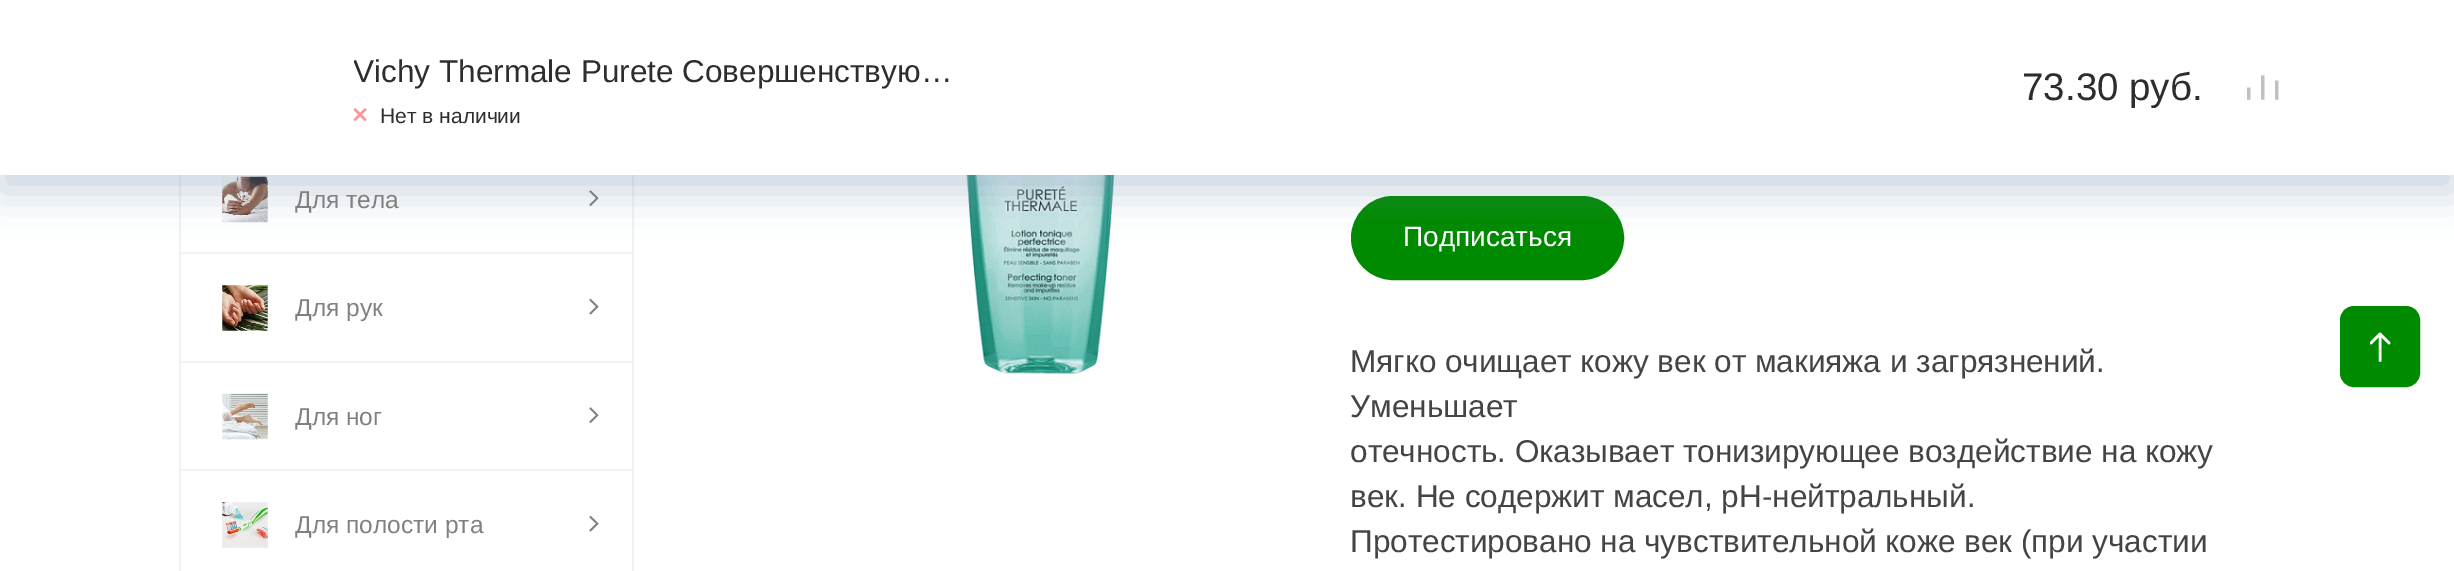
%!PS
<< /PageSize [2454 571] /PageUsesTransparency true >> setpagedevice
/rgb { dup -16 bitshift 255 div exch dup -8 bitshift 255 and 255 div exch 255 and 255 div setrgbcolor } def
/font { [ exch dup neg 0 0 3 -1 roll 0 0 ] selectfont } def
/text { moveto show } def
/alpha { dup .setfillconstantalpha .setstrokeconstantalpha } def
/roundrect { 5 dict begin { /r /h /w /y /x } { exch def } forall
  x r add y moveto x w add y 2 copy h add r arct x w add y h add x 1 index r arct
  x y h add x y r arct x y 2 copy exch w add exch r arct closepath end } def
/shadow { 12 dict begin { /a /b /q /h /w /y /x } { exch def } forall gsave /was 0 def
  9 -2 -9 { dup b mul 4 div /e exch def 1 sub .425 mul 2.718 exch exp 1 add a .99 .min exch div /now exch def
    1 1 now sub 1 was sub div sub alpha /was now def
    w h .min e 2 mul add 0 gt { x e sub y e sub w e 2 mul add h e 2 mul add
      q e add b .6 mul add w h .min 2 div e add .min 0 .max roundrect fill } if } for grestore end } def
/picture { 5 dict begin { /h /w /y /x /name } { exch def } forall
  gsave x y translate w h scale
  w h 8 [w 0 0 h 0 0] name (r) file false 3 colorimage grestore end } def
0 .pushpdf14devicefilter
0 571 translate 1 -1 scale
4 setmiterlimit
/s1 { /LiberationSans-Regular 31.5 font 16#2D2D2D rgb } def
/s2 { /LiberationSans-Regular 21 font 16#2D2D2D rgb } def
/s3 { /LiberationSans-Regular 38.5 font 16#2D2D2D rgb } def
/s4 { /LiberationSans-Regular 28 font 16#FFFFFF rgb } def
/s5 { /LiberationSans-Regular 31.5 font 16#444444 rgb } def
/s6 { /LiberationSans-Regular 24.5 font 16#808080 rgb } def
16#FFFFFF rgb
0 0 2454 571 rectfill
(pic3.raw) 962 175 157 199 picture
16#008A00 rgb
1353 198 269 80 40 roundrect gsave fill grestore
4 setlinewidth
stroke
16#F2F2F2 rgb
632 175 2 187 rectfill
179 252 455 2 rectfill
179 175 2 79 rectfill
(pic4.raw) 222 176 46 47 picture
(pic5.raw) 589 190 10 16 picture
179 361 455 2 rectfill
179 254 2 108 rectfill
16#6782A5 rgb
0 16 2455 175 0 21 0.35 shadow
16#FFFFFF rgb
0 0 2454 175 rectfill
gsave
354 49 612 47 rectclip
s1
(Vichy Thermale Purete Совершенствую…) 353 82 text
grestore
(pic1.raw) 353 108 14 14 picture
s2
(Нет в наличии) 380 123 text
s3
(73.30 руб.) 2022 100 text
(pic2.raw) 2247 75 32 25 picture
s4
(Подписаться) 1403 246 text
s5
(Мягко очищает кожу век от макияжа и загрязнений.) 1350 372 text
(Уменьшает) 1350 417 text
(отечность. Оказывает тонизирующее воздействие на кожу) 1350 462 text
(век. Не содержит масел, рН-нейтральный.) 1350 507 text
(Протестировано на чувствительной коже век \(при участии) 1350 552 text
s6
(Для тела) 295 208 text
(pic6.raw) 222 285 46 46 picture
(Для рук) 295 316 text
(pic7.raw) 589 298 10 17 picture
16#F2F2F2 rgb
632 362 2 209 rectfill
179 469 455 2 rectfill
179 362 2 209 rectfill
(pic8.raw) 222 393 46 47 picture
s6
(Для ног) 295 425 text
(pic5.raw) 589 407 10 16 picture
(pic9.raw) 222 502 46 46 picture
(Для полости рта) 295 533 text
(pic7.raw) 589 515 10 17 picture
16#008A00 rgb
2342 308 76 77 12 roundrect gsave fill grestore
stroke
gsave
2370 333 21 29 rectclip
16#FFFFFF rgb
2.6 setlinewidth
1 setlinecap
1 setlinejoin
2389 343 moveto 2380 334 lineto 2371 343 lineto stroke
grestore
16#FFFFFF rgb
2.6 setlinewidth
1 setlinecap
1 setlinejoin
2380 360.5 moveto 2380 334 lineto stroke
.poppdf14devicefilter showpage
